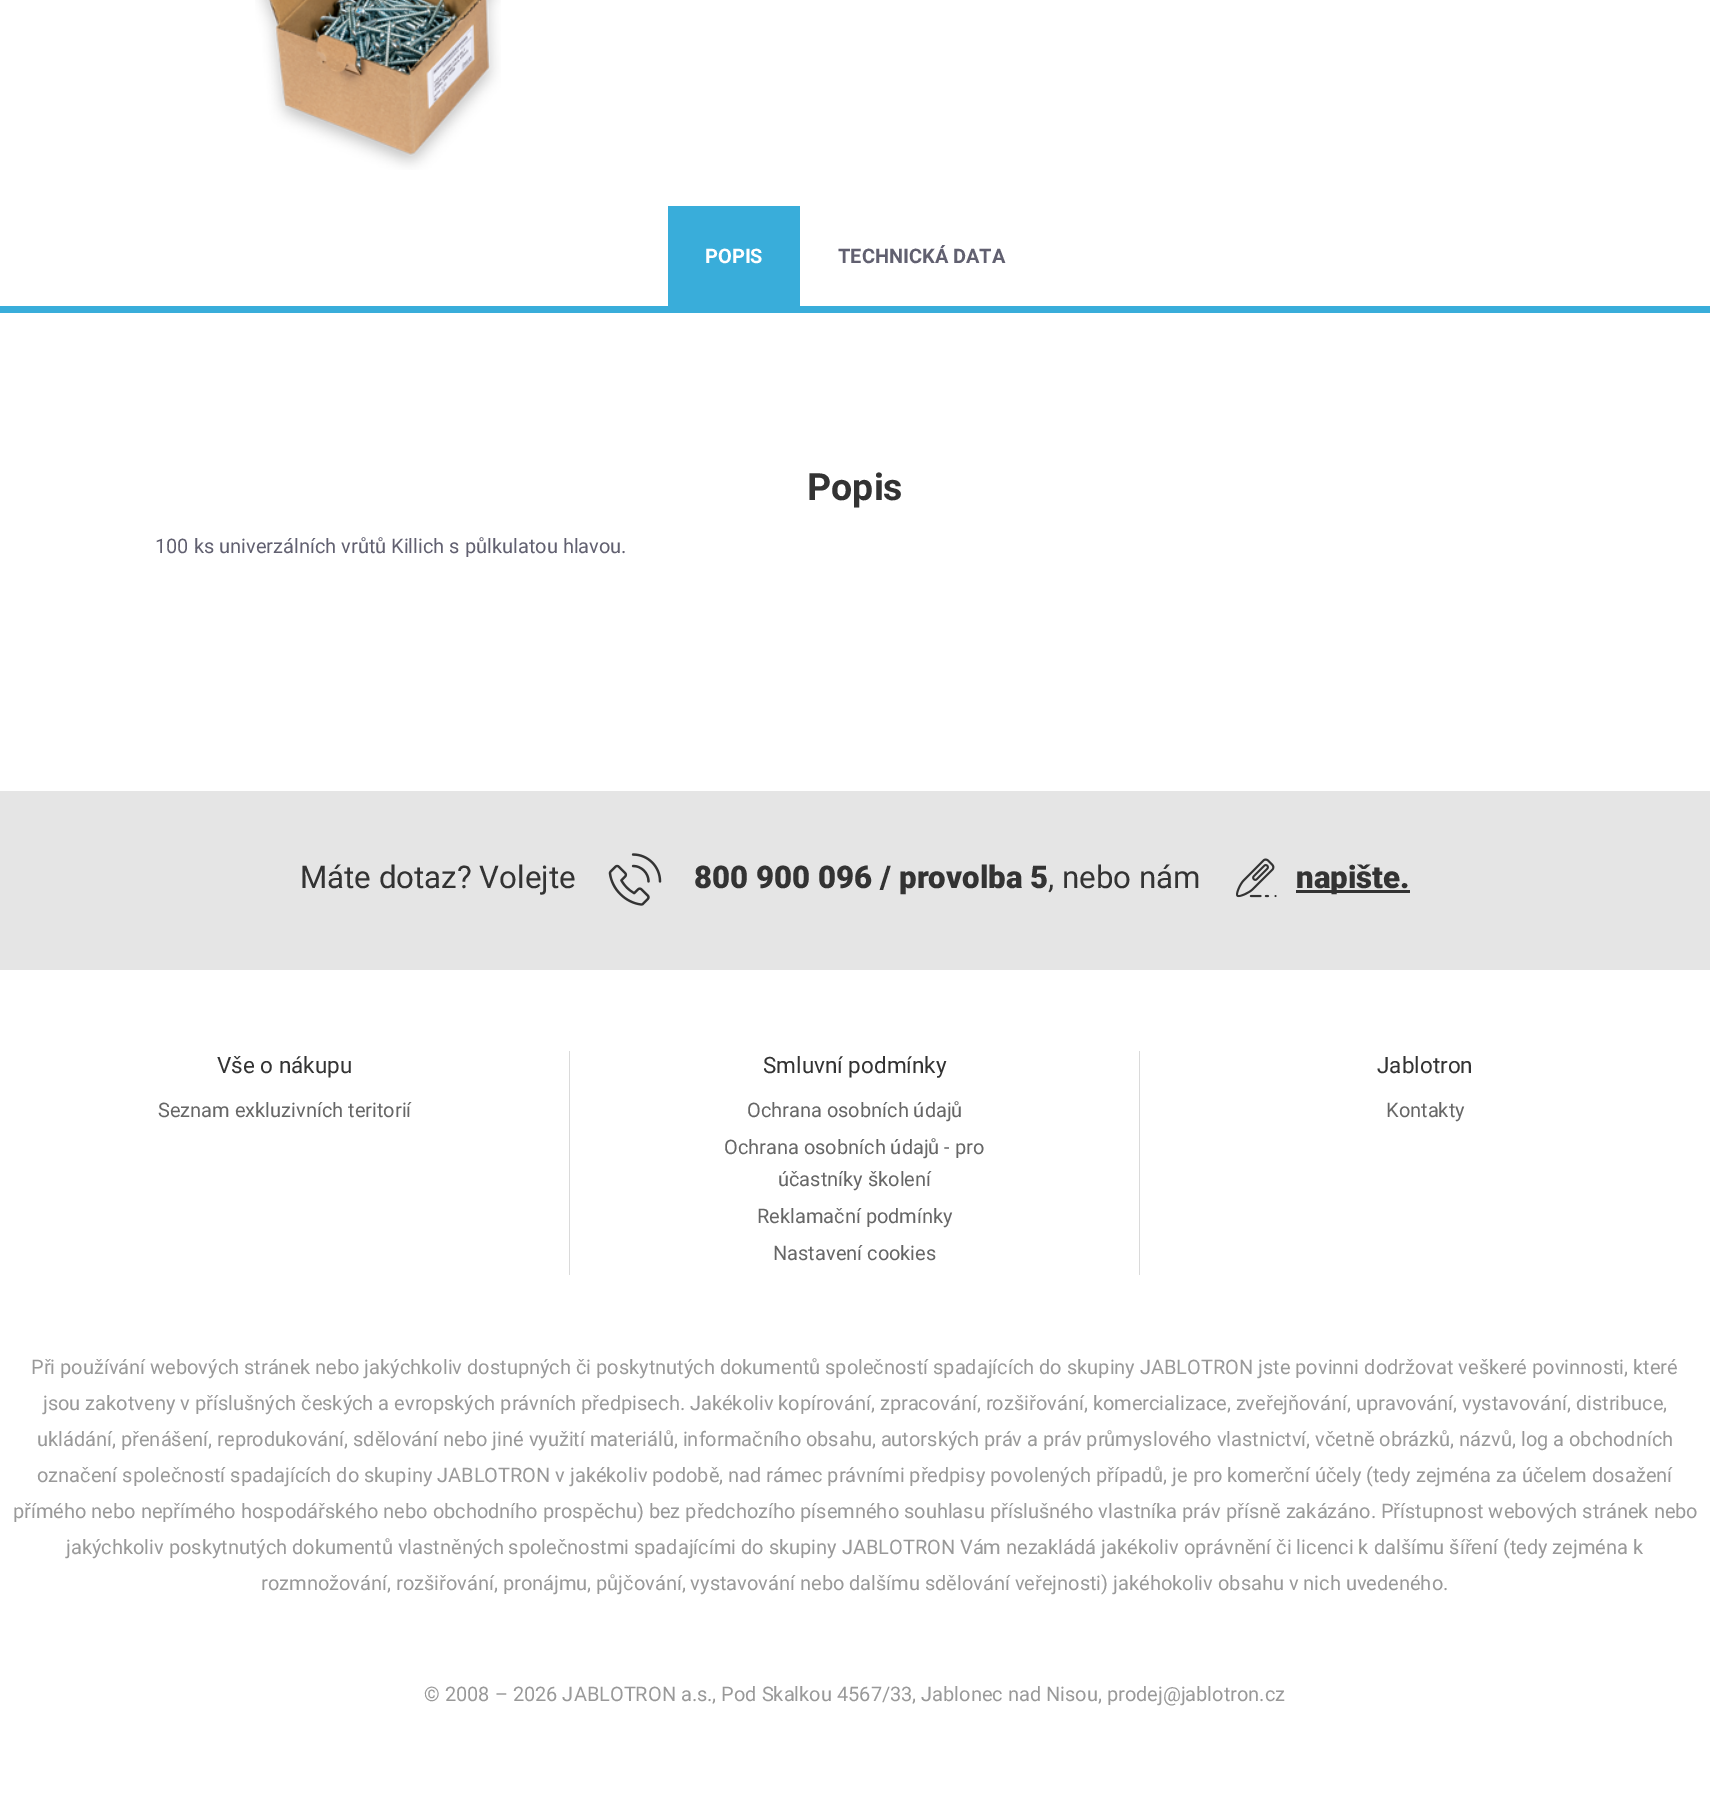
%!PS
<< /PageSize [1710 1820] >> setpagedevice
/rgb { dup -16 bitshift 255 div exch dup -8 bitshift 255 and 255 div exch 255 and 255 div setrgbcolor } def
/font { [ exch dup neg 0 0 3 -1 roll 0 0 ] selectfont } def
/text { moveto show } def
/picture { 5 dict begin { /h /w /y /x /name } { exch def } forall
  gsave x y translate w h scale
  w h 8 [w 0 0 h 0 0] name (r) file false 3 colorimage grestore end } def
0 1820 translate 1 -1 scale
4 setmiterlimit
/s1 { /Roboto-Bold 20 font 16#FFFFFF rgb } def
/s2 { /Roboto-Bold 20 font 16#616070 rgb } def
/s3 { /Roboto-Bold 37.5 font 16#333333 rgb } def
/s4 { /Roboto-Regular 20 font 16#616070 rgb } def
/s5 { /Roboto-Regular 31.25 font 16#333333 rgb } def
/s6 { /Roboto-Black 31.25 font 16#333333 rgb } def
/s7 { /Roboto-Regular 22.5 font 16#333333 rgb } def
/s8 { /Roboto-Regular 20 font 16#666666 rgb } def
/s9 { /Roboto-Regular 20 font 16#999999 rgb } def
16#FFFFFF rgb
0 0 1710 1820 rectfill
(pic1.raw) 255 0 246 170 picture
16#39ADDA rgb
668 206 132 100 rectfill
s1
(POPIS) 705 263 text
s2
(TECHNICKÁ DATA) 838 263 text
16#39ADDA rgb
0 306 1710 7 rectfill
s3
(Popis) 807 500 text
s4
(100 ks univerzálních vrůtů Killich s půlkulatou hlavou.) 155 553 text
16#E5E5E5 rgb
0 791 1710 179 rectfill
s5
(Máte dotaz? Volejte) 300 888 text
(pic2.raw) 608 853 54 53 picture
s6
(800 900 096 / provolba 5) 694 888 text
s5
(, nebo nám) 1048 888 text
(pic3.raw) 1236 858 41 40 picture
1296 890 114 3 rectfill
s6
(napište.) 1296 888 text
16#DADADA rgb
569 1051 1 224 rectfill
s7
(Vše o nákupu) 217 1073 text
s8
(Seznam exkluzivních teritorií) 158 1117 text
16#DADADA rgb
1139 1051 1 224 rectfill
s7
(Smluvní podmínky) 763 1073 text
s8
(Ochrana osobních údajů) 747 1117 text
(Ochrana osobních údajů - pro) 724 1154 text
(účastníky školení) 778 1186 text
(Reklamační podmínky) 757 1223 text
(Nastavení cookies) 773 1260 text
s7
(Jablotron) 1377 1073 text
s8
(Kontakty) 1386 1117 text
s9
(Při používání webových stránek nebo jakýchkoliv dostupných či poskytnutých dokumentů společností spadajících do skupiny JABLOTRON jste povinni dodržovat veškeré povinnosti, které) 31 1374 text
(jsou zakotveny v příslušných českých a evropských právních předpisech. Jakékoliv kopírování, zpracování, rozšiřování, komercializace, zveřejňování, upravování, vystavování, distribuce,) 43 1410 text
(ukládání, přenášení, reprodukování, sdělování nebo jiné využití materiálů, informačního obsahu, autorských práv a práv průmyslového vlastnictví, včetně obrázků, názvů, log a obchodních) 37 1446 text
(označení společností spadajících do skupiny JABLOTRON v jakékoliv podobě, nad rámec právními předpisy povolených případů, je pro komerční účely \(tedy zejména za účelem dosažení) 37 1482 text
(přímého nebo nepřímého hospodářského nebo obchodního prospěchu\) bez předchozího písemného souhlasu příslušného vlastníka práv přísně zakázáno. Přístupnost webových stránek nebo) 13 1518 text
(jakýchkoliv poskytnutých dokumentů vlastněných společnostmi spadajícími do skupiny JABLOTRON Vám nezakládá jakékoliv oprávnění či licenci k dalšímu šíření \(tedy zejména k) 66 1554 text
(rozmnožování, rozšiřování, pronájmu, půjčování, vystavování nebo dalšímu sdělování veřejnosti\) jakéhokoliv obsahu v nich uvedeného.) 261 1590 text
(© 2008 – 2026 JABLOTRON a.s., Pod Skalkou 4567/33, Jablonec nad Nisou, prodej@jablotron.cz) 424 1701 text
showpage
